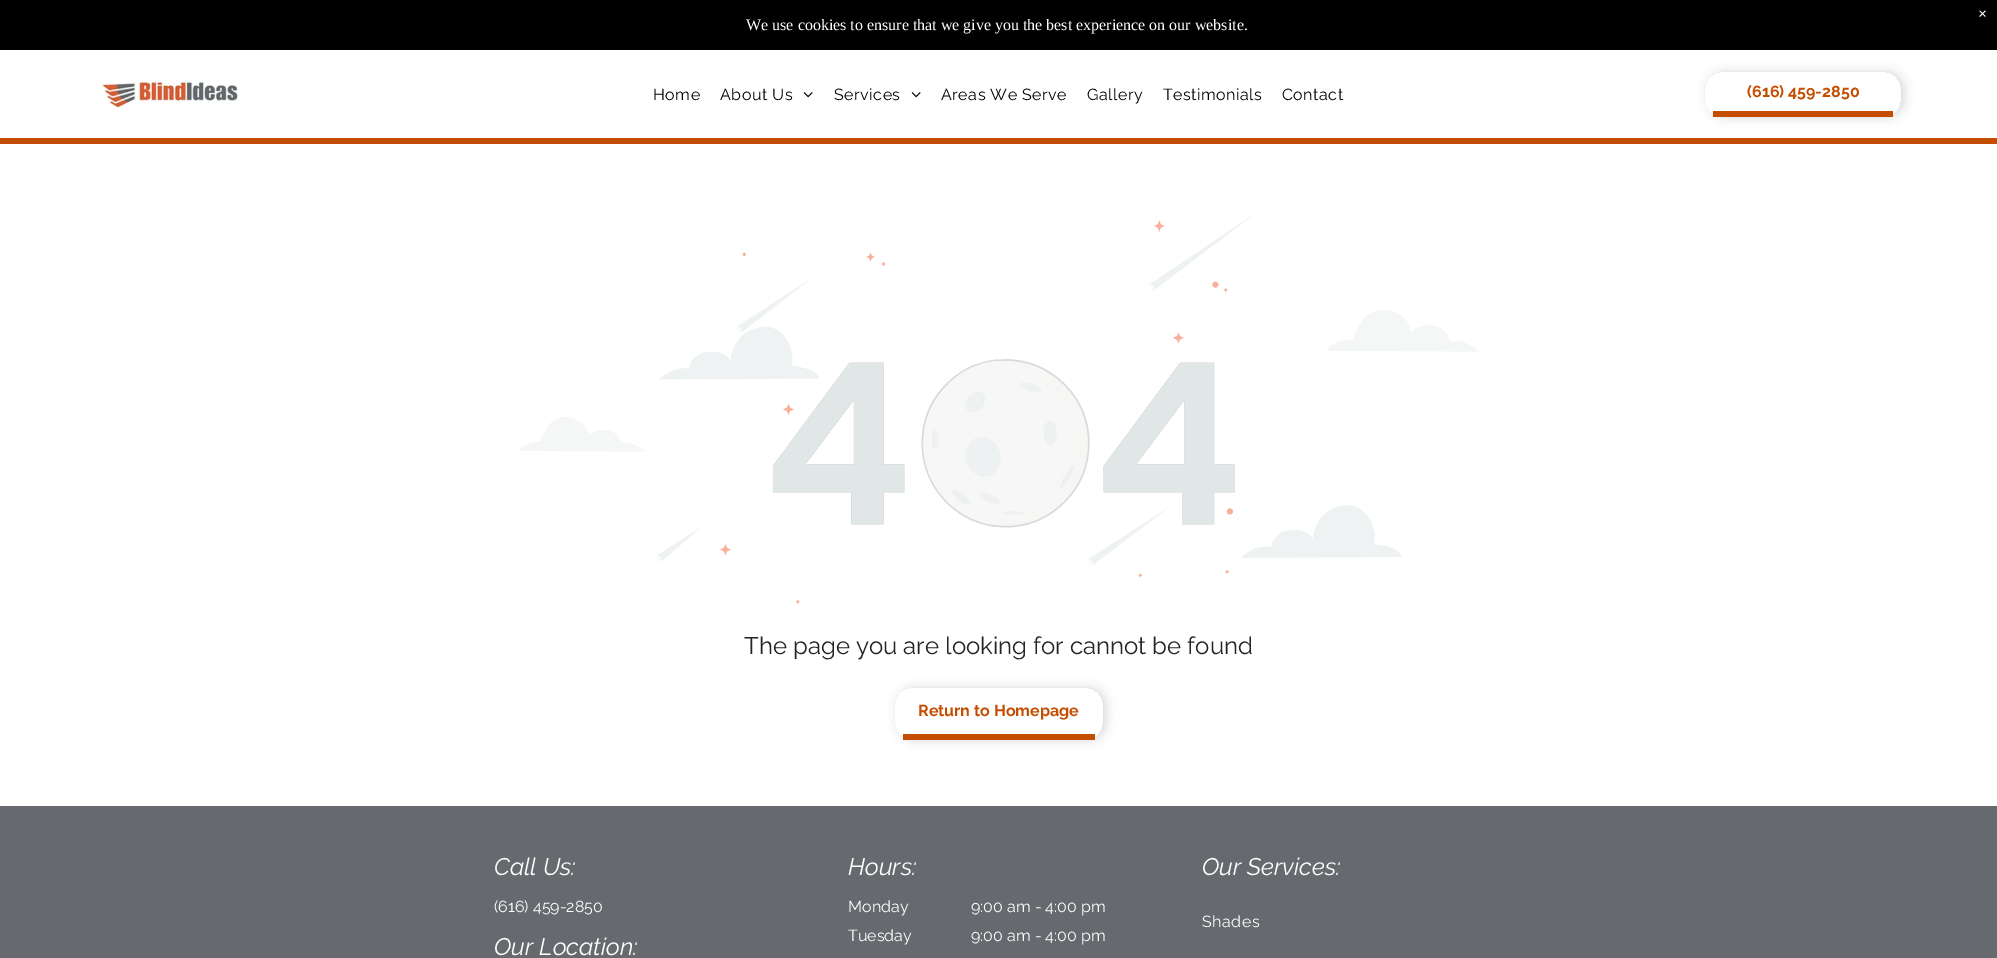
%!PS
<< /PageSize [1997 958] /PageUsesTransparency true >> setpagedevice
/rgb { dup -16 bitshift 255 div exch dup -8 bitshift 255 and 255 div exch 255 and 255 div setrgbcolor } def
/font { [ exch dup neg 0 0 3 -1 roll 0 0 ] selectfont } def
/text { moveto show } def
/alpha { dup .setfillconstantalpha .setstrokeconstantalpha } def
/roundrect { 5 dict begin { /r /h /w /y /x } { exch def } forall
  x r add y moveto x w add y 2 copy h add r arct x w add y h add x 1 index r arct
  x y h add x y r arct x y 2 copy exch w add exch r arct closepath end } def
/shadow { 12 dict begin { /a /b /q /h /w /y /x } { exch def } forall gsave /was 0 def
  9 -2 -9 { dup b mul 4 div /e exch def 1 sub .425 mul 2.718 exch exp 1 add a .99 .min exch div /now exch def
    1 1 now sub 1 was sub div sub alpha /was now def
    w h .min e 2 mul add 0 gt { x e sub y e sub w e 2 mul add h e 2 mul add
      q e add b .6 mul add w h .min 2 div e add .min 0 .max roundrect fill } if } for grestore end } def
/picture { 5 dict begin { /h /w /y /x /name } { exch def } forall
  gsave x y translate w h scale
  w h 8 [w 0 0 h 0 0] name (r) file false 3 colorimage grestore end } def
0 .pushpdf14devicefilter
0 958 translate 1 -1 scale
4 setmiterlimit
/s1 { /LiberationSerif-Bold 16 font 16#FFFFFF rgb } def
/s2 { /LiberationSerif-Regular 16 font 16#FFFFFF rgb } def
/s3 { /Raleway-Bold 16 font 16#C44D00 rgb } def
/s4 { /Raleway-Regular 24 font 16#242424 rgb } def
/s5 { /Raleway-Italic 24 font 16#FFFFFF rgb } def
/s6 { /Raleway-Regular 16 font 16#FFFFFF rgb } def
16#FFFFFF rgb
0 0 1997 958 rectfill
16#000000 rgb
0 0 1997 50 rectfill
s1
(×) 1978 19 text
s2
(We use cookies to ensure that we give you the best experience on our website.) 746 30 text
16#C44D00 rgb
0 138 1997 6 rectfill
(pic1.raw) 101 79 137 29 picture
/Raleway-Regular 16 font
16#000000 rgb
653 100 moveto 0.5 0 (Home) ashow
720 100 moveto 0.5 0 (About Us) ashow
(pic2.raw) 803 92 10 6 picture
834 100 moveto 0.5 0 (Services) ashow
(pic2.raw) 911 92 10 6 picture
941 100 moveto 0.5 0 (Areas We Serve) ashow
1087 100 moveto 0.5 0 (Gallery) ashow
1163 100 moveto 0.5 0 (Testimonials) ashow
1282 100 moveto 0.5 0 (Contact) ashow
gsave
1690 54 moveto 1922 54 lineto 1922 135 lineto 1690 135 lineto closepath 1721 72 moveto 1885 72 lineto 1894 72 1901 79 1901 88 curveto 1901 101 lineto 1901 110 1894 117 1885 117 curveto 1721 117 lineto 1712 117 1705 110 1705 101 curveto 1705 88 lineto 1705 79 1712 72 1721 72 curveto closepath eoclip newpath
16#66696E rgb
1708 72 196 45 16 5.5 0.25 shadow
grestore
16#C44D00 rgb
1713 111 180 6 rectfill
s3
(\(616\) 459-2850) 1747 97 text
(pic3.raw) 519 212 960 392 picture
s4
(The page you are looking for cannot be found) 744 654 text
gsave
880 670 moveto 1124 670 lineto 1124 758 lineto 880 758 lineto closepath 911 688 moveto 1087 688 lineto 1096 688 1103 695 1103 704 curveto 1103 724 lineto 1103 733 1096 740 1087 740 curveto 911 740 lineto 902 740 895 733 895 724 curveto 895 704 lineto 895 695 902 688 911 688 curveto closepath eoclip newpath
16#66696E rgb
898 688 208 52 16 5.5 0.25 shadow
grestore
16#C44D00 rgb
903 734 192 6 rectfill
s3
(Return to Homepage) 918 716 text
16#66696E rgb
0 806 1997 152 rectfill
s5
(Call Us:) 494 875 text
s6
(\(616\) 459-2850) 494 912 text
s5
(Our Location:) 494 955 text
(Hours:) 848 875 text
s6
(Monday) 848 912 text
(9:00 am - 4:00 pm) 971 912 text
(Tuesday) 848 941 text
(9:00 am - 4:00 pm) 971 941 text
s5
(Our Services:) 1202 875 text
/Raleway-Regular 16 font
1202 927 moveto 0.5 0 (Shades) ashow
.poppdf14devicefilter showpage
